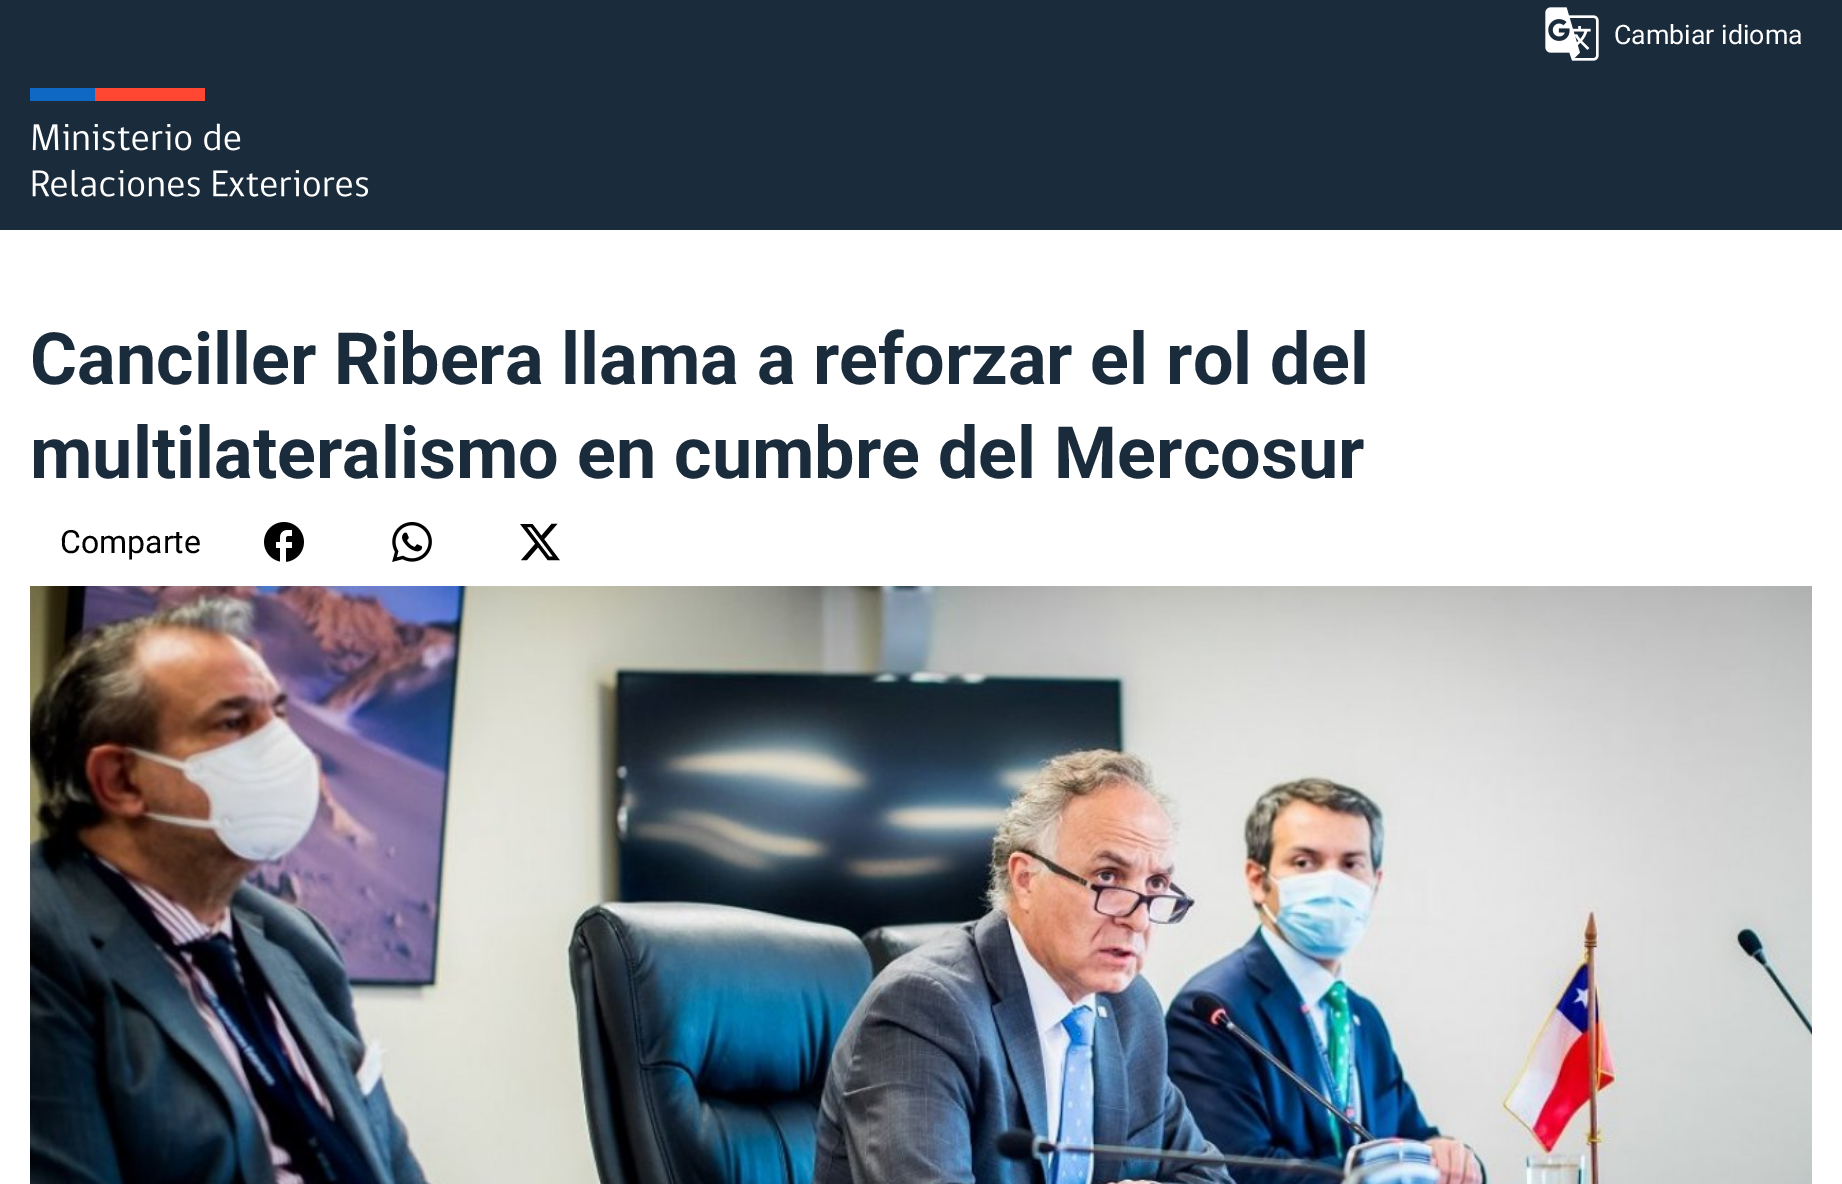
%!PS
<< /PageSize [1842 1184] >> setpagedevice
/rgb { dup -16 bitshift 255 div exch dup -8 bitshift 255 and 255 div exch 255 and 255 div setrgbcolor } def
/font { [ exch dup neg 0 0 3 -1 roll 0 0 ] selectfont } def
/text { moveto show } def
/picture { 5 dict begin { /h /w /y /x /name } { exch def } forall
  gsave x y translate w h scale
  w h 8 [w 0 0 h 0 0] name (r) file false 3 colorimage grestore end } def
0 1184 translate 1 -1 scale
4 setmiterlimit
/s1 { /Roboto-Regular 26.75 font 16#FFFFFF rgb } def
/s2 { /Roboto-Bold 72 font 16#1A2B3B rgb } def
/s3 { /Roboto-Regular 32 font 16#000000 rgb } def
16#FFFFFF rgb
0 0 1842 1184 rectfill
16#1A2B3B rgb
0 0 1842 230 rectfill
(pic1.raw) 1545 7 54 54 picture
s1
(Cambiar idioma) 1614 44 text
(pic2.raw) 30 88 339 109 picture
s2
(Canciller Ribera llama a reforzar el rol del) 30 384 text
(multilateralismo en cumbre del Mercosur) 30 478 text
s3
(Comparte) 60 553 text
(pic3.raw) 264 522 40 40 picture
(pic4.raw) 392 522 40 40 picture
(pic5.raw) 520 523 40 38 picture
(pic6.raw) 30 586 1782 598 picture
showpage
